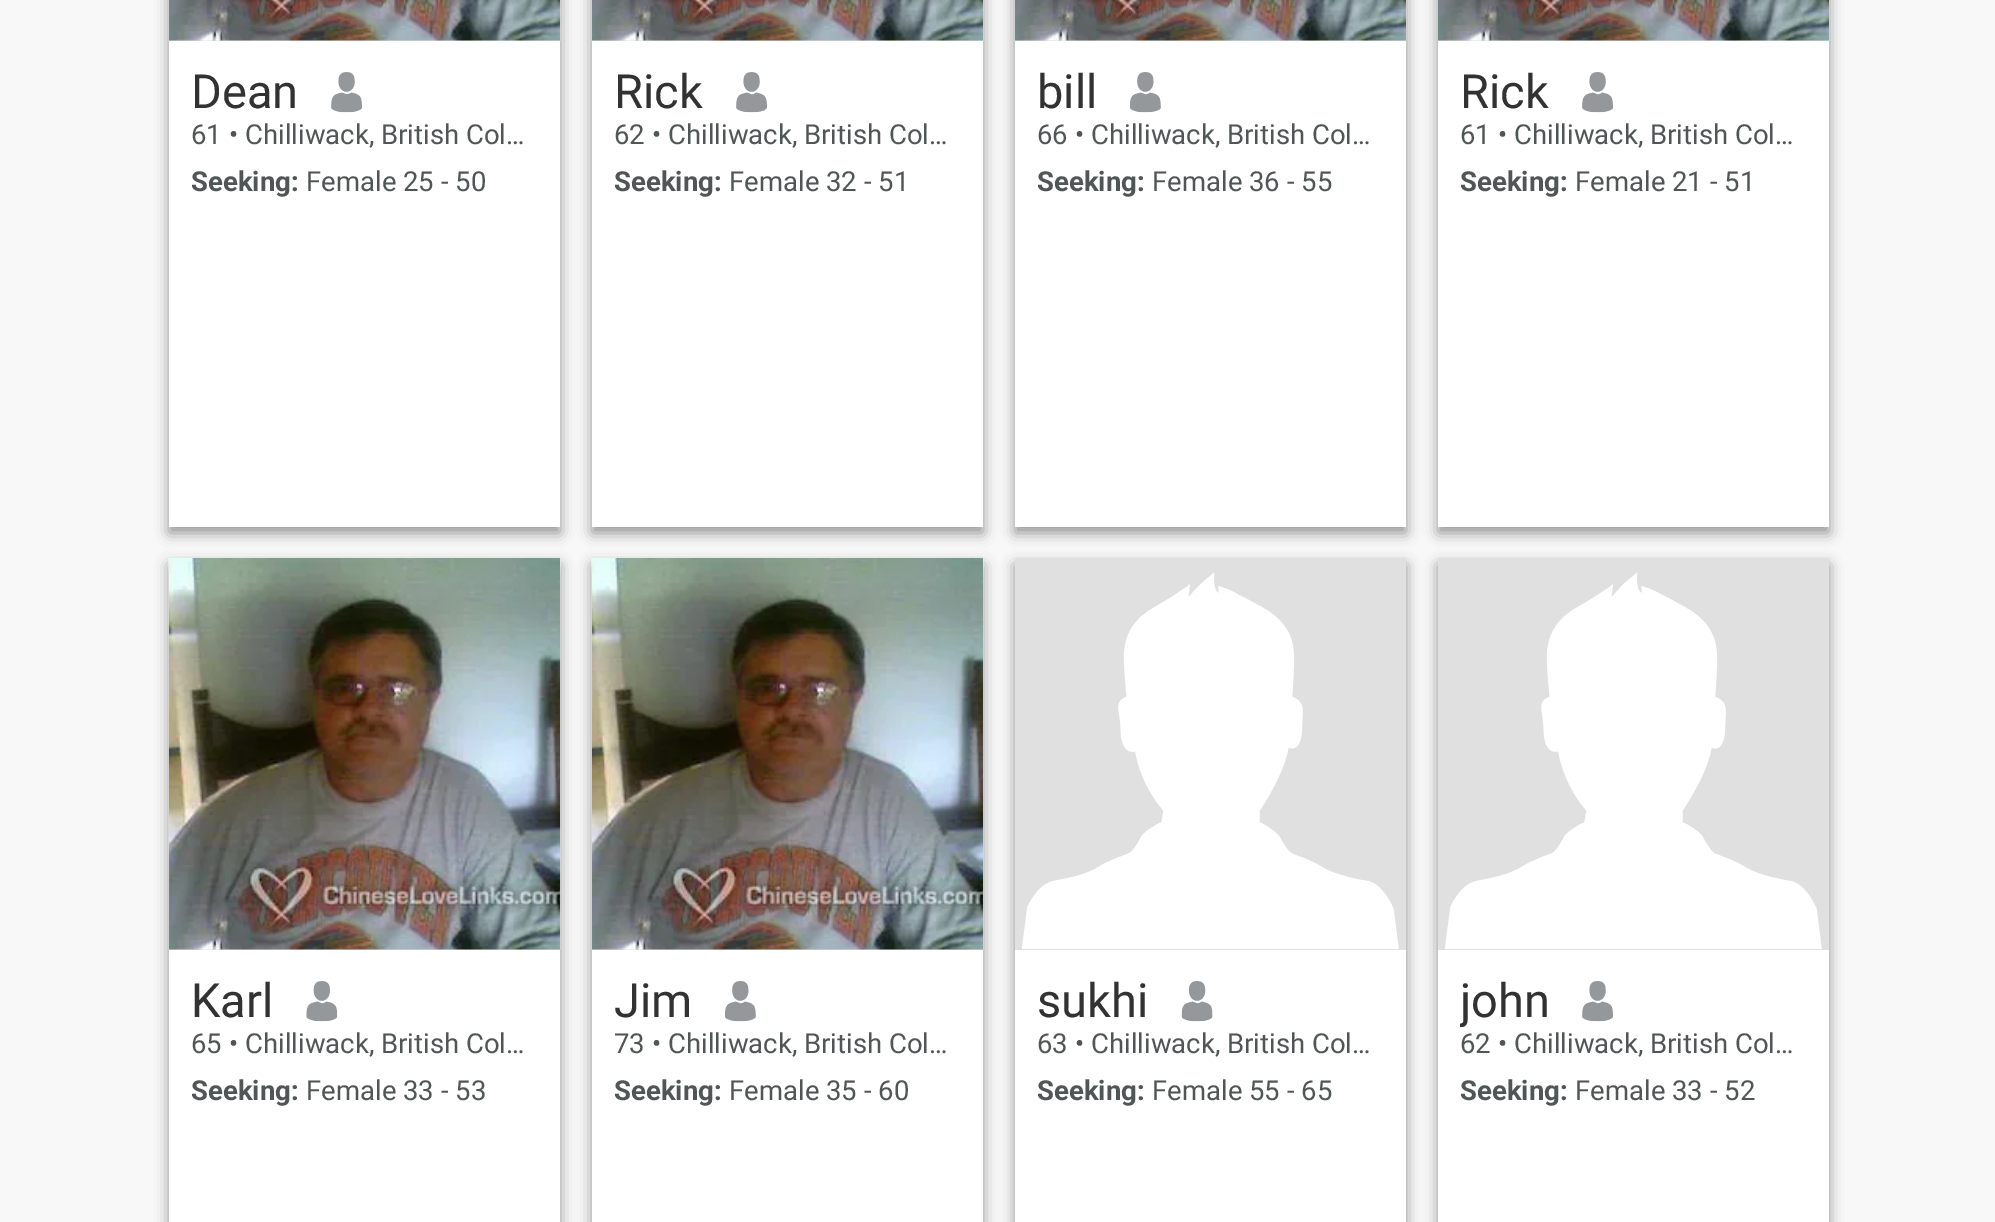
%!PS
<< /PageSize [1995 1222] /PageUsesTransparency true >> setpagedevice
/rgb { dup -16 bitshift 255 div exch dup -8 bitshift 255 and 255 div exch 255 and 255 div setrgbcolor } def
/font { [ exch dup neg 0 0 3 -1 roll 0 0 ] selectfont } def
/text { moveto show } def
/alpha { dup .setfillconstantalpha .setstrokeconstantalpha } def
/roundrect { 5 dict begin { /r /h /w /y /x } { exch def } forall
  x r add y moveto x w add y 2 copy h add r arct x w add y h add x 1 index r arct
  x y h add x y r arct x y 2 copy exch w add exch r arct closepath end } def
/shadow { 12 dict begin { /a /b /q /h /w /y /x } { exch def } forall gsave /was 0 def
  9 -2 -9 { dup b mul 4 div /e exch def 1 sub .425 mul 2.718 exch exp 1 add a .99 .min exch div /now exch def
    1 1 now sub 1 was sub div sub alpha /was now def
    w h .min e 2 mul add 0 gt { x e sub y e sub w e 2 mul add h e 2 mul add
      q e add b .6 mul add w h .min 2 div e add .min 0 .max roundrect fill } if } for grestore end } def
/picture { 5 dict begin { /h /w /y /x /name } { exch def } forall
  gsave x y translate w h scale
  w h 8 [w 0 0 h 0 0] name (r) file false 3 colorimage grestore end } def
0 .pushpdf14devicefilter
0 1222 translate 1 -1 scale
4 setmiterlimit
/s1 { /Roboto-Regular 47 font 16#323232 rgb } def
/s2 { /Roboto-Regular 27.5 font 16#505656 rgb } def
/s3 { /Roboto-Bold 27.5 font 16#505656 rgb } def
16#F8F8F8 rgb
0 0 1995 1222 rectfill
16#000000 rgb
169 -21 391 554 0 7 0.4 shadow
16#FFFFFF rgb
169 41 391 486 rectfill
16#E0E0E0 rgb
169 40 391 1 rectfill
(pic1.raw) 168 0 393 41 picture
s1
(Dean) 191 108 text
(pic2.raw) 331 72 31 41 picture
s2
(61 • Chilliwack, British Col…) 191 144 text
s3
(Seeking:) 191 191 text
s2
(Female 25 - 50) 306 191 text
16#000000 rgb
592 -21 391 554 0 7 0.4 shadow
16#FFFFFF rgb
592 41 391 486 rectfill
16#E0E0E0 rgb
592 40 391 1 rectfill
(pic1.raw) 591 0 393 41 picture
s1
(Rick) 614 108 text
(pic3.raw) 736 72 31 41 picture
s2
(62 • Chilliwack, British Col…) 614 144 text
s3
(Seeking:) 614 191 text
s2
(Female 32 - 51) 729 191 text
16#000000 rgb
1015 -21 391 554 0 7 0.4 shadow
16#FFFFFF rgb
1015 41 391 486 rectfill
16#E0E0E0 rgb
1015 40 391 1 rectfill
(pic1.raw) 1014 0 393 41 picture
s1
(bill) 1037 108 text
(pic4.raw) 1130 72 31 41 picture
s2
(66 • Chilliwack, British Col…) 1037 144 text
s3
(Seeking:) 1037 191 text
s2
(Female 36 - 55) 1152 191 text
16#000000 rgb
1438 -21 391 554 0 7 0.4 shadow
16#FFFFFF rgb
1438 41 391 486 rectfill
16#E0E0E0 rgb
1438 40 391 1 rectfill
(pic1.raw) 1437 0 393 41 picture
s1
(Rick) 1460 108 text
(pic2.raw) 1582 72 31 41 picture
s2
(61 • Chilliwack, British Col…) 1460 144 text
s3
(Seeking:) 1460 191 text
s2
(Female 21 - 51) 1575 191 text
16#000000 rgb
169 565 391 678 0 7 0.4 shadow
16#FFFFFF rgb
169 950 391 272 rectfill
16#E0E0E0 rgb
169 949 391 1 rectfill
(pic5.raw) 168 558 393 392 picture
s1
(Karl) 191 1017 text
(pic6.raw) 306 981 32 41 picture
s2
(65 • Chilliwack, British Col…) 191 1053 text
s3
(Seeking:) 191 1100 text
s2
(Female 33 - 53) 306 1100 text
16#000000 rgb
592 565 391 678 0 7 0.4 shadow
16#FFFFFF rgb
592 950 391 272 rectfill
16#E0E0E0 rgb
592 949 391 1 rectfill
(pic5.raw) 591 558 393 392 picture
s1
(Jim) 614 1017 text
(pic4.raw) 725 981 31 41 picture
s2
(73 • Chilliwack, British Col…) 614 1053 text
s3
(Seeking:) 614 1100 text
s2
(Female 35 - 60) 729 1100 text
16#000000 rgb
1015 565 391 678 0 7 0.4 shadow
16#FFFFFF rgb
1015 950 391 272 rectfill
16#E0E0E0 rgb
1015 558 391 392 rectfill
(pic7.raw) 1022 572 377 377 picture
s1
(sukhi) 1037 1017 text
(pic8.raw) 1181 981 32 41 picture
s2
(63 • Chilliwack, British Col…) 1037 1053 text
s3
(Seeking:) 1037 1100 text
s2
(Female 55 - 65) 1152 1100 text
16#000000 rgb
1438 565 391 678 0 7 0.4 shadow
16#FFFFFF rgb
1438 950 391 272 rectfill
16#E0E0E0 rgb
1438 558 391 392 rectfill
(pic9.raw) 1445 572 377 377 picture
gsave
1460 974 90 54 rectclip
s1
(john) 1460 1017 text
grestore
(pic2.raw) 1582 981 31 41 picture
s2
(62 • Chilliwack, British Col…) 1460 1053 text
s3
(Seeking:) 1460 1100 text
s2
(Female 33 - 52) 1575 1100 text
.poppdf14devicefilter showpage
